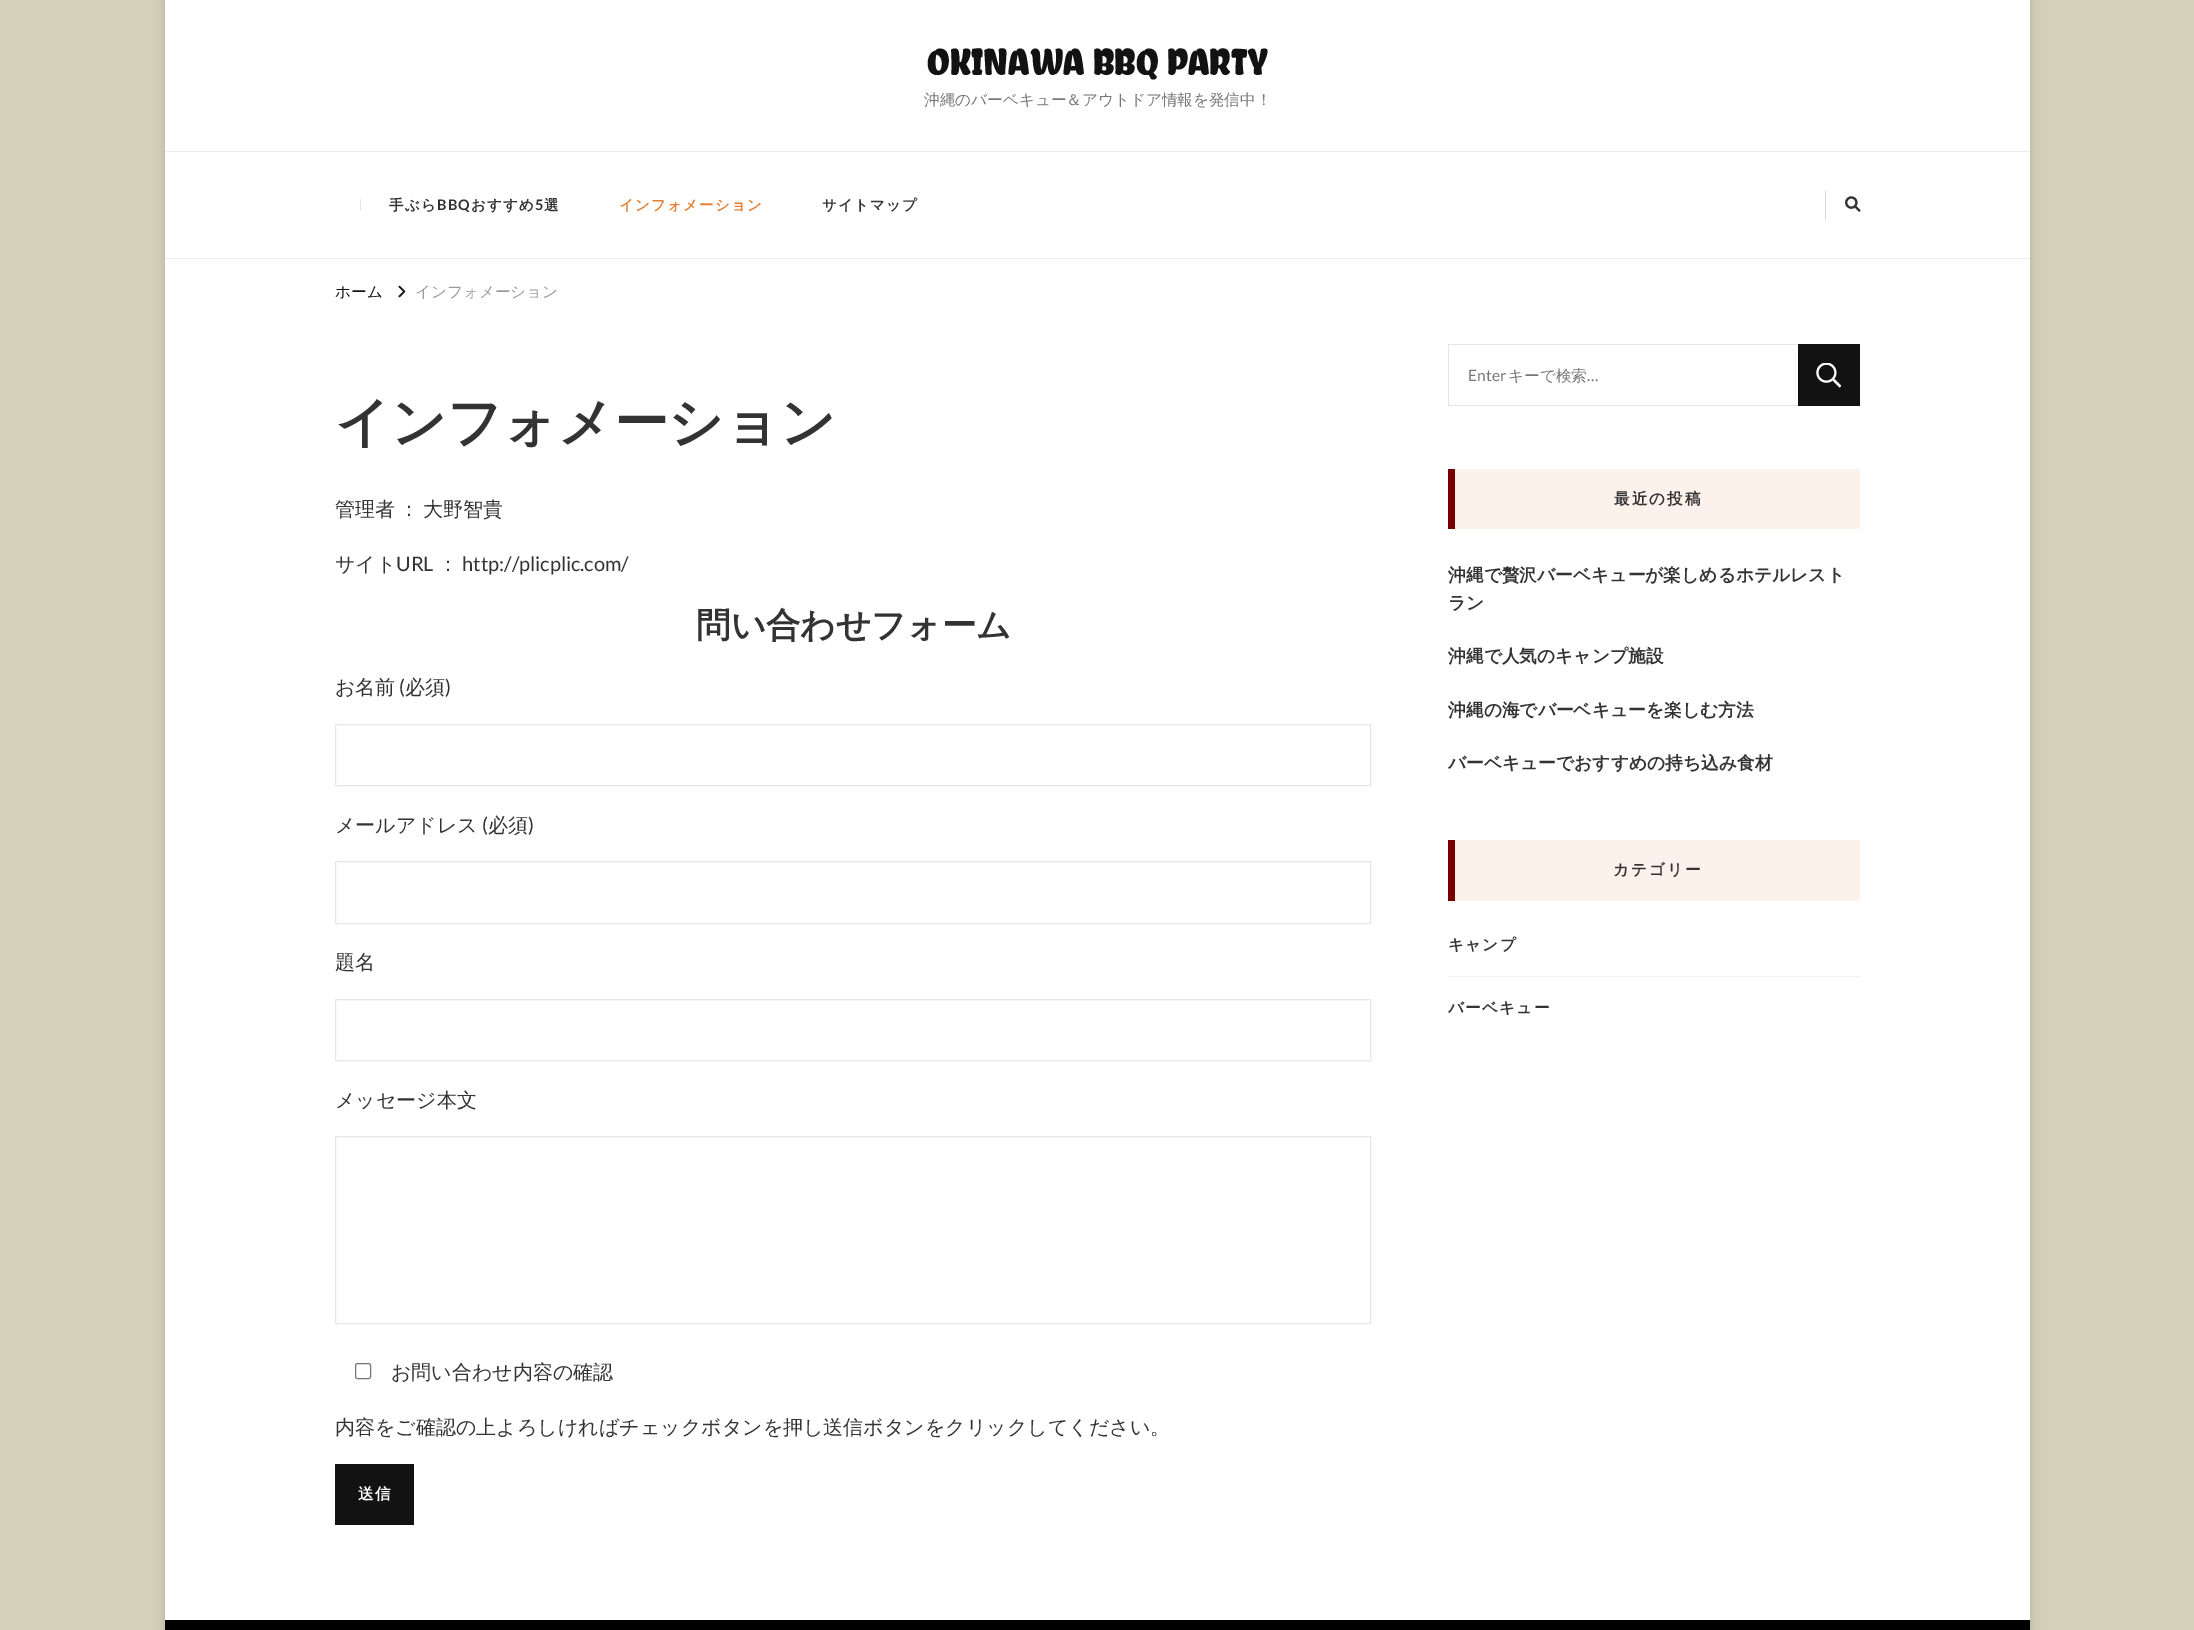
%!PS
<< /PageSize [2194 1630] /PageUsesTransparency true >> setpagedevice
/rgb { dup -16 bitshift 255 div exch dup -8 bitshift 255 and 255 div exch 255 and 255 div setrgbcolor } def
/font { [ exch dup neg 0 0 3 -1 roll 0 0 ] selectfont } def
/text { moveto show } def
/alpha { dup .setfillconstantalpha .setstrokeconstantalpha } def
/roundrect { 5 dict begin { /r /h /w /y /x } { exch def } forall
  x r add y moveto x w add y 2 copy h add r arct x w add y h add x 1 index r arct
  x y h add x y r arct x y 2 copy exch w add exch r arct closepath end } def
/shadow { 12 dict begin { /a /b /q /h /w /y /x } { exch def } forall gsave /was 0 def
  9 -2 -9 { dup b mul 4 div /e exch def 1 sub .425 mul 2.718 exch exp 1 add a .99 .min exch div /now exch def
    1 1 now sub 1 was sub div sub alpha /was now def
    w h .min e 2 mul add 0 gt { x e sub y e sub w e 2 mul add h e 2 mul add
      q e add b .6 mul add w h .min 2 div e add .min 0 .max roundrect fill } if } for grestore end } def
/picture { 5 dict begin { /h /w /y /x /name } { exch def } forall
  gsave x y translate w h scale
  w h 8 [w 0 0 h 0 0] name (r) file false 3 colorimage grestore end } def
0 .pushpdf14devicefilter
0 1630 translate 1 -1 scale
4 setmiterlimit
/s1 { /ChelaOne-Regular 37.5 font 16#121212 rgb } def
/s2 { /WenQuanYiZenHei-Medium 15.6 font 16#757575 rgb } def
/s3 { /WenQuanYiZenHei-Medium 15.6 font 16#121212 rgb } def
/s4 { /WenQuanYiZenHei-Medium 15.6 font 16#999999 rgb } def
/s5 { /WenQuanYiZenHei-Bold 54.5 font 16#333333 rgb } def
/s6 { /WenQuanYiZenHei-Medium 20 font 16#333333 rgb } def
/s7 { /Lato-Regular 20 font 16#333333 rgb } def
/s8 { /WenQuanYiZenHei-Bold 34.5 font 16#333333 rgb } def
/s9 { /Lato-Regular 15.6 font 16#757575 rgb } def
/s10 { /WenQuanYiZenHei-Bold 17.75 font 16#333333 rgb } def
16#D3D1BA rgb
0 0 2194 1630 rectfill
16#000000 rgb
165 0 1865 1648 0 6 0.16 shadow
16#FFFFFF rgb
165 0 1865 1620 rectfill
s1
(OKINAWA BBQ PARTY) 927 75 text
s2
(沖縄のバーベキュー＆アウトドア情報を発信中！) 924 105 text
16#EDEDED rgb
165 151 1865 1 rectfill
165 258 1865 1 rectfill
16#E6E6E6 rgb
360 199 1 12 rectfill
/WenQuanYiZenHei-Bold 14.5 font
16#333333 rgb
389 210 moveto 1.25 0 (手ぶら) ashow
/Lato-Bold 14.5 font
437 210 moveto 1.25 0 (BBQ) ashow
/WenQuanYiZenHei-Bold 14.5 font
471 210 moveto 1.25 0 (おすすめ) ashow
/Lato-Bold 14.5 font
535 210 moveto 1.25 0 (5) ashow
/WenQuanYiZenHei-Bold 14.5 font
544 210 moveto 1.25 0 (選) ashow
16#E27F34 rgb
619 210 moveto 1.25 0 (インフォメーション) ashow
16#333333 rgb
822 210 moveto 1.25 0 (サイトマップ) ashow
16#D9D9D9 rgb
1825 190 1 30 rectfill
(pic1.raw) 1845 196 16 16 picture
s3
(ホーム) 335 297 text
(pic2.raw) 398 285 8 13 picture
s4
(インフォメーション) 415 297 text
s5
(インフォメーション) 335 441 text
/WenQuanYiZenHei-Medium 20 font
335 516 moveto -2 0 32 (管理者 ： 大野智貴) widthshow
(サイト) 335 571 text
s7
(URL) 396 571 text
s6
(：) 438 571 text
s7
(http://plicplic.com/) 462 571 text
s8
(問い合わせフォーム) 696 637 text
s6
(お名前) 335 694 text
s7
(\() 399 694 text
s6
(必須) 405 694 text
s7
(\)) 445 694 text
16#E6E6E6 rgb
335.5 724.5 1035 61 rectstroke
s6
(メールアドレス) 335 832 text
s7
(\() 482 832 text
s6
(必須) 488 832 text
s7
(\)) 528 832 text
16#E6E6E6 rgb
335.5 861.5 1035 62 rectstroke
s6
(題名) 335 969 text
16#E6E6E6 rgb
335.5 999.5 1035 61 rectstroke
s6
(メッセージ本文) 335 1107 text
16#E6E6E6 rgb
335.5 1136.5 1035 187 rectstroke
16#767676 rgb
355.5 1363.5 15 15 2 roundrect stroke
s6
(お問い合わせ内容の確認) 391 1379 text
(内容をご確認の上よろしければチェックボタンを押し送信ボタンをクリックしてください。) 335 1434 text
16#121212 rgb
335 1464 79 61 rectfill
/WenQuanYiZenHei-Bold 15.6 font
16#FFFFFF rgb
358 1499 moveto 1.25 0 (送信) ashow
16#E6E6E6 rgb
1448 344 moveto 1798 344 lineto 1798 345 lineto 1449 345 lineto closepath fill
1798 406 moveto 1448 406 lineto 1449 405 lineto 1798 405 lineto closepath fill
0.1 alpha
16#000000 rgb
1448 406 moveto 1448 344 lineto 1449 345 lineto 1449 405 lineto closepath fill
1 alpha
s9
(Enter) 1468 381 text
s2
(キーで検索) 1508 381 text
s9
(…) 1587 381 text
16#121212 rgb
1798 344 62 62 rectfill
(pic3.raw) 1816 363 25 25 picture
16#FCF2EB rgb
1455 469 405 60 rectfill
16#750000 rgb
1448 469 7 60 rectfill
/WenQuanYiZenHei-Bold 15.6 font
16#333333 rgb
1614 504 moveto 2 0 (最近の投稿) ashow
s10
(沖縄で贅沢バーベキューが楽しめるホテルレスト) 1448 581 text
(ラン) 1448 609 text
(沖縄で人気のキャンプ施設) 1448 662 text
(沖縄の海でバーベキューを楽しむ方法) 1448 716 text
(バーベキューでおすすめの持ち込み食材) 1448 769 text
16#FCF2EB rgb
1455 840 405 61 rectfill
16#750000 rgb
1448 840 7 61 rectfill
/WenQuanYiZenHei-Bold 15.6 font
16#333333 rgb
1613 875 moveto 2 0 (カテゴリー) ashow
16#F2F2F2 rgb
1448 976 412 1 rectfill
16#333333 rgb
1448 950 moveto 1.25 0 (キャンプ) ashow
1448 1013 moveto 1.25 0 (バーベキュー) ashow
16#000000 rgb
165 1620 1865 10 rectfill
.poppdf14devicefilter showpage
